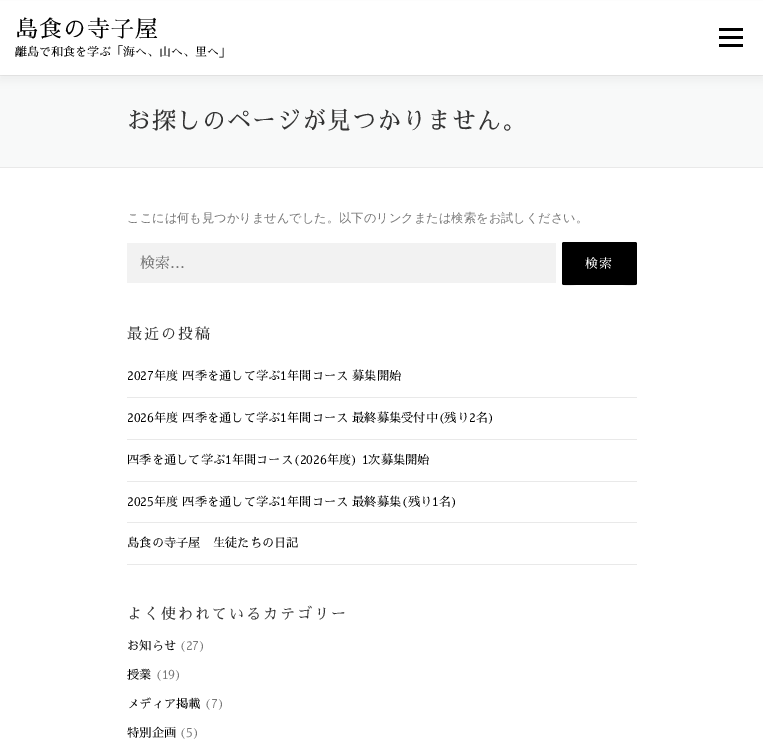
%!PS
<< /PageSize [763 751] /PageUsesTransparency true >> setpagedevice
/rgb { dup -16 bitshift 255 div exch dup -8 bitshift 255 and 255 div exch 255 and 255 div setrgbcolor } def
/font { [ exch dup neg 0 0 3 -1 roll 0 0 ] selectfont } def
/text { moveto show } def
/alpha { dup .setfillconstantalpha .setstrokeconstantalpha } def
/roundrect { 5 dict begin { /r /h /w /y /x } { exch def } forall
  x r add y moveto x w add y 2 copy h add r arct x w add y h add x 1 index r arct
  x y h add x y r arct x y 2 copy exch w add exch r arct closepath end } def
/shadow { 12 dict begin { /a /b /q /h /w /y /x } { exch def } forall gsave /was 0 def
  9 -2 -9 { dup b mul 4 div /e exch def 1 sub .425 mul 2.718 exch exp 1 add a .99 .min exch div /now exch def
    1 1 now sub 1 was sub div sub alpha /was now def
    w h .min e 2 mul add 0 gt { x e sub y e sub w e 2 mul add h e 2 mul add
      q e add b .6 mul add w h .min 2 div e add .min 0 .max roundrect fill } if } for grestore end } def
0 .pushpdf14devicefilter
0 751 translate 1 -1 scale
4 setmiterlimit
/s1 { /SawarabiMincho-Regular 12 font 16#000000 rgb } def
/s2 { /WenQuanYiZenHei-Medium 12.25 font 16#777777 rgb } def
/s3 { /SawarabiMincho-Regular 15 font 16#777777 rgb } def
/s4 { /SawarabiMincho-Regular 12.25 font 16#000000 rgb } def
/s5 { /SawarabiMincho-Regular 12.25 font 16#777777 rgb } def
16#FFFFFF rgb
0 0 763 751 rectfill
16#F8F9F9 rgb
0 76 763 91 rectfill
16#E9E9E9 rgb
0 75 763 1 rectfill
16#323232 rgb
0 5 763 75 0 5 0.06 shadow
16#FFFFFF rgb
0 1 763 74 rectfill
/SawarabiMincho-Regular 23 font
16#000000 rgb
15 37 moveto 1 0 (島食の寺子屋) ashow
s1
(離島で和食を学ぶ「海へ、山へ、里へ」) 15 56 text
719 36 24 3 rectfill
719 28 24 3 rectfill
719 44 24 3 rectfill
16#E9E9E9 rgb
0 167 763 1 rectfill
/SawarabiMincho-Regular 24 font
16#333333 rgb
127 129 moveto 1 0 (お探しのページが見つかりません。) ashow
s2
(ここには何も見つかりませんでした。以下のリンクまたは検索をお試しください。) 127 222 text
16#F2F2F2 rgb
127 243 429 40 rectfill
s3
(検索…) 140 268 text
16#000000 rgb
562 242 75 43 2 roundrect fill
0.1 alpha
562 282 moveto 562 288 573 285 576 285 curveto 623 285 lineto 626 285 637 288 637 282 curveto 637 283 636 284 635 284 curveto 564 284 lineto 563 284 562 283 562 282 curveto closepath fill
/SawarabiMincho-Regular 13 font
1 alpha
16#FFFFFF rgb
585 268 moveto 1 0 (検索) ashow
/SawarabiMincho-Regular 15 font
16#333333 rgb
127 339 moveto 2 0 (最近の投稿) ashow
16#E9E9E9 rgb
127 397 510 1 rectfill
s4
(2027年度 四季を通して学ぶ1年間コース 募集開始) 127 380 text
16#E9E9E9 rgb
127 439 510 1 rectfill
s4
(2026年度 四季を通して学ぶ1年間コース 最終募集受付中\(残り2名\)) 127 422 text
16#E9E9E9 rgb
127 481 510 1 rectfill
s4
(四季を通して学ぶ1年間コース\(2026年度\) 1次募集開始) 127 464 text
16#E9E9E9 rgb
127 522 510 1 rectfill
s4
(2025年度 四季を通して学ぶ1年間コース 最終募集\(残り1名\)) 127 506 text
16#E9E9E9 rgb
127 564 510 1 rectfill
s4
(島食の寺子屋　生徒たちの日記) 127 547 text
/SawarabiMincho-Regular 15 font
16#333333 rgb
127 619 moveto 2 0 (よく使われているカテゴリー) ashow
s4
(お知らせ) 127 650 text
s5
(\(27\)) 179 650 text
s4
(授業) 127 679 text
s5
(\(19\)) 155 679 text
s4
(メディア掲載) 127 708 text
s5
(\(7\)) 204 708 text
s4
(特別企画) 127 737 text
s5
(\(5\)) 179 737 text
.poppdf14devicefilter showpage
